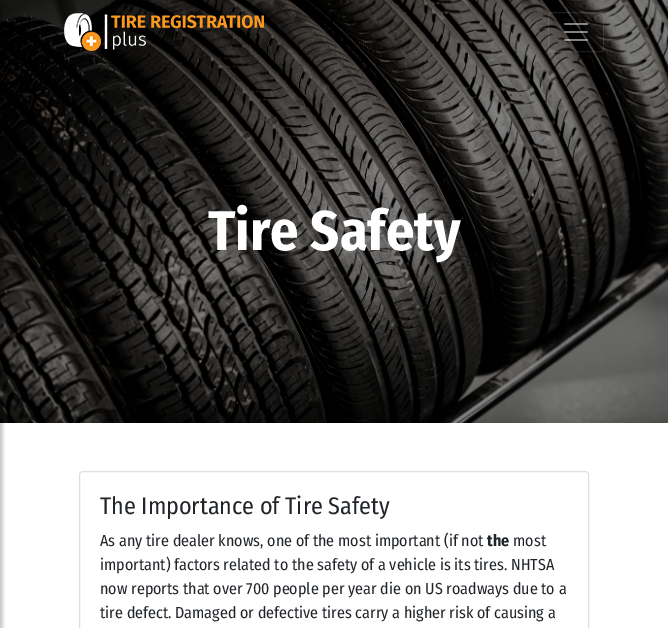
%!PS
<< /PageSize [668 628] /PageUsesTransparency true >> setpagedevice
/rgb { dup -16 bitshift 255 div exch dup -8 bitshift 255 and 255 div exch 255 and 255 div setrgbcolor } def
/font { [ exch dup neg 0 0 3 -1 roll 0 0 ] selectfont } def
/text { moveto show } def
/alpha { dup .setfillconstantalpha .setstrokeconstantalpha } def
/roundrect { 5 dict begin { /r /h /w /y /x } { exch def } forall
  x r add y moveto x w add y 2 copy h add r arct x w add y h add x 1 index r arct
  x y h add x y r arct x y 2 copy exch w add exch r arct closepath end } def
/shadow { 12 dict begin { /a /b /q /h /w /y /x } { exch def } forall gsave /was 0 def
  9 -2 -9 { dup b mul 4 div /e exch def 1 sub .425 mul 2.718 exch exp 1 add a .99 .min exch div /now exch def
    1 1 now sub 1 was sub div sub alpha /was now def
    w h .min e 2 mul add 0 gt { x e sub y e sub w e 2 mul add h e 2 mul add
      q e add b .6 mul add w h .min 2 div e add .min 0 .max roundrect fill } if } for grestore end } def
/picture { 5 dict begin { /h /w /y /x /name } { exch def } forall
  gsave x y translate w h scale
  w h 8 [w 0 0 h 0 0] name (r) file false 3 colorimage grestore end } def
0 .pushpdf14devicefilter
0 628 translate 1 -1 scale
4 setmiterlimit
/s1 { /FiraSansCondensed-Bold 56 font 16#FFFFFF rgb } def
/s2 { /FiraSansCondensed-Regular 24 font 16#212529 rgb } def
/s3 { /FiraSansCondensed-Regular 16 font 16#212529 rgb } def
/s4 { /FiraSansCondensed-Bold 16 font 16#212529 rgb } def
16#FFFFFF rgb
0 0 668 628 rectfill
(pic3.raw) 0 0 668 423 picture
16#000000 rgb
-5 3 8 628 0 1.5 0.2 shadow
(pic1.raw) 64 13 200 38 picture
0.1 alpha
16#FFFFFF rgb
548.5 12.5 55 39 3.5 roundrect stroke
1 alpha
(pic2.raw) 564 23 24 18 picture
s1
(Tire Safety) 208 250 text
16#DFDFDF rgb
79.5 471.5 509 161 3.5 roundrect stroke
s2
(The Importance of Tire Safety) 100 514 text
s3
(As any tire dealer knows, one of the most important \(if not) 100 546 text
s4
(the) 487 546 text
s3
(most) 513 546 text
(important\) factors related to the safety of a vehicle is its tires. NHTSA) 100 570 text
(now reports that over 700 people per year die on US roadways due to a) 100 594 text
(tire defect. Damaged or defective tires carry a higher risk of causing a) 100 618 text
.poppdf14devicefilter showpage
